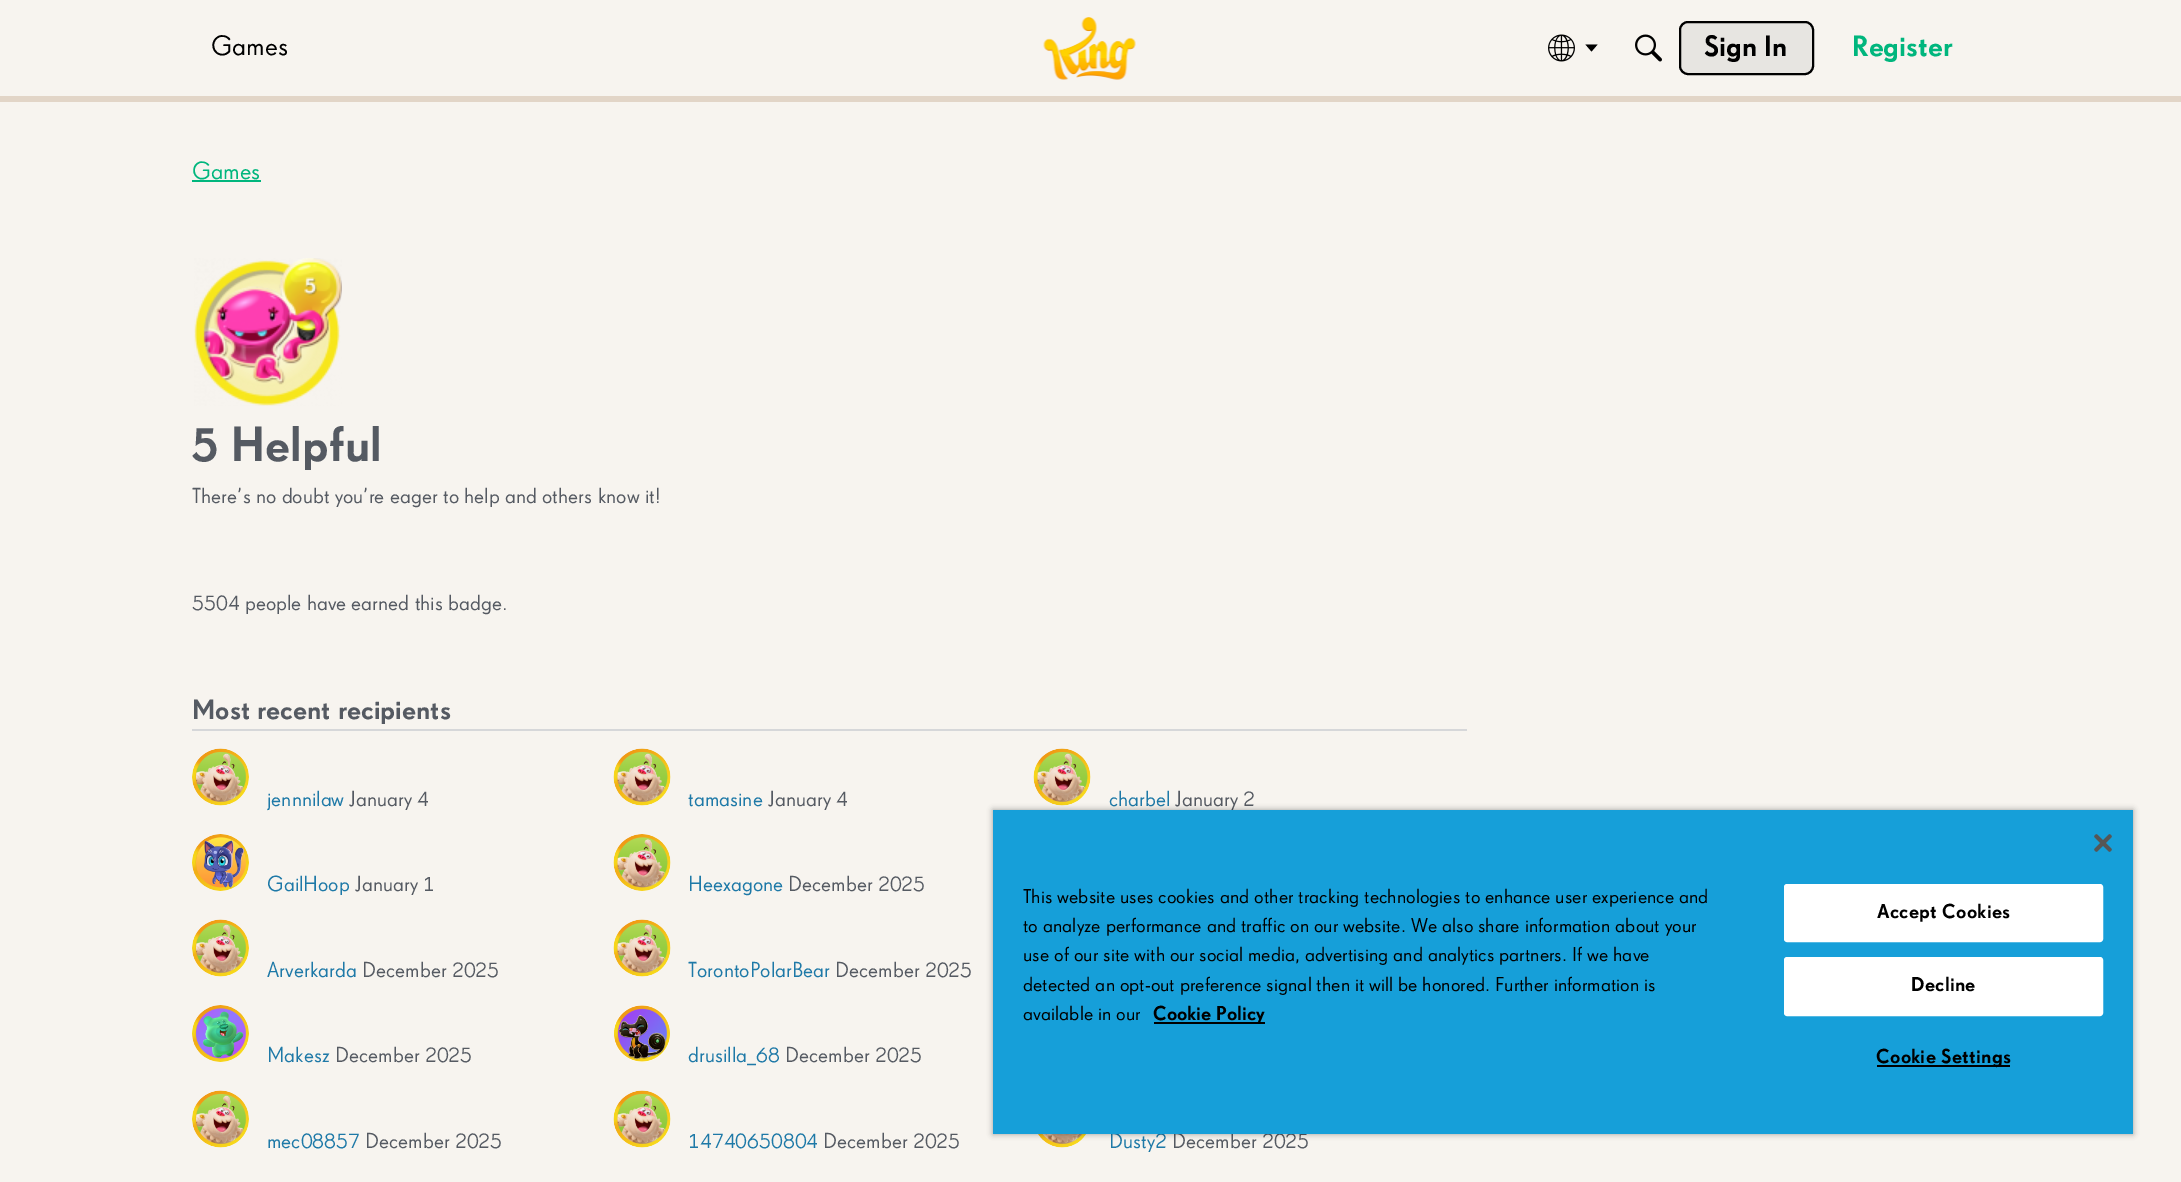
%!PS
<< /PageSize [2181 1182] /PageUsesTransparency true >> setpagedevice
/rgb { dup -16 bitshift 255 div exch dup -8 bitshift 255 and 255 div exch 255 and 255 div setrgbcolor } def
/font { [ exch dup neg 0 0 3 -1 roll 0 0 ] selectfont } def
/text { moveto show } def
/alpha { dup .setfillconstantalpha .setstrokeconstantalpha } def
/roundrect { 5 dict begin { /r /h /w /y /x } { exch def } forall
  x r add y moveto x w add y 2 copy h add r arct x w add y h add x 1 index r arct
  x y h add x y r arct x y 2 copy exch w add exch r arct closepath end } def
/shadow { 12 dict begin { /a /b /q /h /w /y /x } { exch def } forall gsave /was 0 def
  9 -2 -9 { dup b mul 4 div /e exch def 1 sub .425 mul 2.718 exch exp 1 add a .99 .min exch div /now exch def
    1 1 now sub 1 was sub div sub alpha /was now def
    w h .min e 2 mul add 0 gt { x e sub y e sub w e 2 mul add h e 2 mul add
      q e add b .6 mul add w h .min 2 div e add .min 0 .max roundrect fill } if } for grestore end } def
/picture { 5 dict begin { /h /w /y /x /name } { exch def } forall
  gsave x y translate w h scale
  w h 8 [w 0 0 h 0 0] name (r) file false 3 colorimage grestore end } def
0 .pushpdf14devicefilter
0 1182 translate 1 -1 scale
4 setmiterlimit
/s1 { /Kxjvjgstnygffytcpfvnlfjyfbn-Regular 27 font 16#000000 rgb } def
/s2 { /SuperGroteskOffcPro-Medium 28.5 font 16#000000 rgb } def
/s3 { /SuperGroteskOffcPro-Medium 28.5 font 16#00B67D rgb } def
/s4 { /Kxjvjgstnygffytcpfvnlfjyfbn-Regular 24 font 16#00B67D rgb } def
/s5 { /SuperGroteskOffcPro-Medium 48 font 16#555A62 rgb } def
/s6 { /Kxjvjgstnygffytcpfvnlfjyfbn-Regular 21 font 16#555A62 rgb } def
/s7 { /SuperGroteskOffcPro-Medium 27 font 16#555A62 rgb } def
/s8 { /Kxjvjgstnygffytcpfvnlfjyfbn-Regular 21 font 16#1E79A7 rgb } def
/s9 { /Kxjvjgstnygffytcpfvnlfjyfbn-Regular 19.5 font 16#000000 rgb } def
/s10 { /SuperGroteskOffcPro-Medium 19.5 font 16#000000 rgb } def
16#F7F4EF rgb
0 0 2181 1182 rectfill
16#E2D5C7 rgb
0 96 2181 6 rectfill
s1
(Games) 211 55 text
(pic1.raw) 1043 17 93 63 picture
(pic2.raw) 1548 34 27 28 picture
1585.5 44.5 moveto 1597.5 44.5 lineto 1591.5 51.5 lineto closepath fill
(pic3.raw) 1635 34 27 28 picture
16#E7E5E1 rgb
1680 22 133 52 8 roundrect gsave fill grestore
16#000000 rgb
2 setlinewidth
stroke
s2
(Sign In) 1704 56 text
s3
(Register) 1852 56 text
s4
(Games) 192 179 text
192 180 69 2 rectfill
(pic4.raw) 194 258 148 148 picture
s5
(5 Helpful) 192 461 text
s6
(There’s no doubt you’re eager to help and others know it!) 192 503 text
(5504 people have earned this badge.) 192 610 text
16#D6D7D9 rgb
192 729 1275 2 rectfill
s7
(Most recent recipients) 192 719 text
(pic5.raw) 192 748 57 58 picture
s8
(jennnilaw) 267 806 text
s6
(January 4) 349 806 text
(pic6.raw) 613 748 58 58 picture
s8
(tamasine) 688 806 text
s6
(January 4) 768 806 text
(pic6.raw) 1033 748 58 58 picture
s8
(charbel) 1109 806 text
s6
(January 2) 1175 806 text
(pic7.raw) 192 834 57 57 picture
s8
(GailHoop) 267 891 text
s6
(January 1) 355 891 text
(pic8.raw) 613 834 58 57 picture
s8
(Heexagone) 688 891 text
s6
(December 2025) 788 891 text
(pic9.raw) 192 919 57 58 picture
s8
(Arverkarda) 267 977 text
s6
(December 2025) 362 977 text
(pic10.raw) 613 919 58 58 picture
s8
(TorontoPolarBear) 688 977 text
s6
(December 2025) 835 977 text
(pic11.raw) 192 1005 57 57 picture
s8
(Makesz) 267 1062 text
s6
(December 2025) 335 1062 text
(pic12.raw) 614 1005 56 57 picture
s8
(drusilla_68) 688 1062 text
s6
(December 2025) 785 1062 text
(pic9.raw) 192 1090 57 58 picture
s8
(mec08857) 267 1148 text
s6
(December 2025) 365 1148 text
(pic10.raw) 613 1090 58 58 picture
s8
(14740650804) 688 1148 text
s6
(December 2025) 823 1148 text
(pic13.raw) 1038 1134 48 14 picture
s8
(Dusty2) 1109 1148 text
s6
(December 2025) 1172 1148 text
16#000000 rgb
993 810 1140 324 0 3 0.35 shadow
16#169FD9 rgb
993 810 1140 324 rectfill
(pic14.raw) 2094 834 18 18 picture
s9
(This website uses cookies and other tracking technologies to enhance user experience and) 1023 903 text
(to analyze performance and traffic on our website. We also share information about your) 1023 932 text
(use of our site with our social media, advertising and analytics partners. If we have) 1023 961 text
(detected an opt-out preference signal then it will be honored. Further information is) 1023 991 text
(available in our) 1023 1020 text
1154 1022 111 2 rectfill
s10
(Cookie Policy) 1153 1020 text
16#FFFFFF rgb
1785 885 317 56 2 roundrect gsave fill grestore
stroke
16#000000 rgb
1877 918 moveto 0.25 0 (Accept Cookies) ashow
16#FFFFFF rgb
1785 958 317 57 2 roundrect gsave fill grestore
stroke
16#000000 rgb
1911 991 moveto 0.25 0 (Decline) ashow
1877 1065 133 2 rectfill
1876 1063 moveto 0.25 0 (Cookie Settings) ashow
.poppdf14devicefilter showpage
